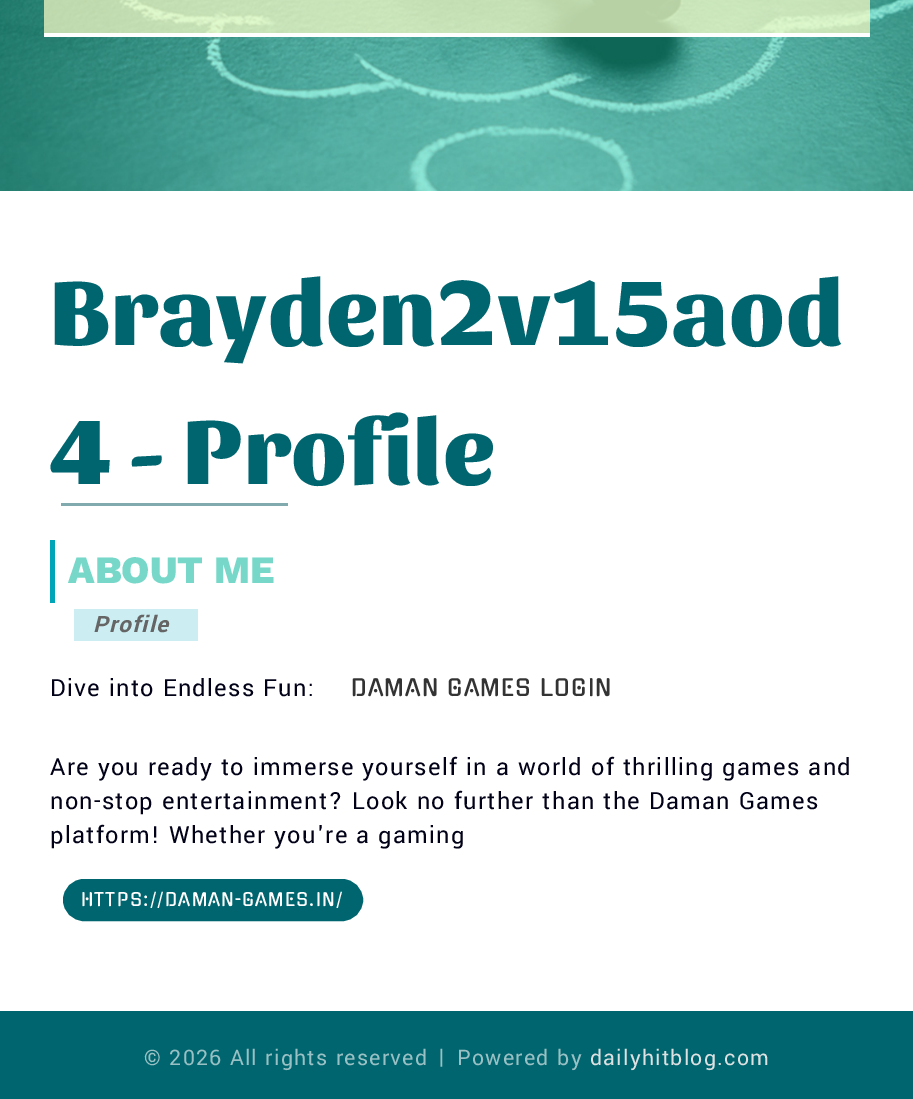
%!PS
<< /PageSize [913 1099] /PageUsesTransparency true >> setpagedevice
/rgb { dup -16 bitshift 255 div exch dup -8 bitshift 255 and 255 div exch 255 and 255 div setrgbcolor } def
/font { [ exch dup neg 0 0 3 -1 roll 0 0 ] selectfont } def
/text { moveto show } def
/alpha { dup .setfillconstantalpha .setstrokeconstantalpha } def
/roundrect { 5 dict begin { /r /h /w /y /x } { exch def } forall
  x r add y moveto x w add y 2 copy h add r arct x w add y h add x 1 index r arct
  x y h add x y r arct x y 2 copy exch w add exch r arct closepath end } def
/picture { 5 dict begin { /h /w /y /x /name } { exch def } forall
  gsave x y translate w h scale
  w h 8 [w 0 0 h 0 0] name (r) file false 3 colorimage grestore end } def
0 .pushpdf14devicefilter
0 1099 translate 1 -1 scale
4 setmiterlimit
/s1 { /WorkSans-ExtraBold 38.75 font 16#77D7C8 rgb } def
16#FFFFFF rgb
0 0 913 1099 rectfill
(pic1.raw) 0 0 913 191 picture
0.7 alpha
16#FFFFC7 rgb
44 0 826 33 rectfill
1 alpha
16#FFFFFF rgb
44 33 826 4 rectfill
/Sansita-ExtraBold 95.5 font
16#00656E rgb
50 345 moveto 1.25 0 (Brayden2v15aod) ashow
50 484 moveto 1.25 0 (4 - Profile) ashow
16#80AAAE rgb
61 503 227 3 rectfill
16#00A6B8 rgb
50 540 5 63 rectfill
s1
(ABOUT ME) 68 583 text
16#CCEEF2 rgb
74 609 124 32 rectfill
/Yantramanav-BoldItalic 25 font
16#656565 rgb
93 632 moveto 1.25 0 (Profile) ashow
/Yantramanav-Regular 26.25 font
16#010118 rgb
50 696 moveto 1.25 0 (Dive into Endless Fun:) ashow
/Gugi-Regular 22.5 font
16#333333 rgb
351 696 moveto 1.25 0 (DAMAN GAMES LOGIN) ashow
/Yantramanav-Regular 26.25 font
16#010118 rgb
50 775 moveto 1.25 0 (Are you ready to immerse yourself in a world of thrilling games and) ashow
50 809 moveto 1.25 0 (non-stop entertainment? Look no further than the Daman Games) ashow
50 843 moveto 1.25 0 (platform! Whether you're a gaming) ashow
16#00656E rgb
64.5 880.5 297 39 19.5 roundrect gsave fill grestore
3 setlinewidth
stroke
/Gugi-Regular 17.5 font
16#FFFFFF rgb
81 906 moveto 1.25 0 (HTTPS://DAMAN-GAMES.IN/) ashow
16#00656E rgb
0 1011 913 88 rectfill
/Yantramanav-Regular 23.75 font
16#99C1C5 rgb
144 1065 moveto 1.25 0 (© 2026 All rights reserved) ashow
438 1064 moveto 1.25 0 (|) ashow
457 1065 moveto 1.25 0 (Powered by) ashow
16#DEE1E2 rgb
590 1065 moveto 1.25 0 (dailyhitblog.com) ashow
.poppdf14devicefilter showpage
